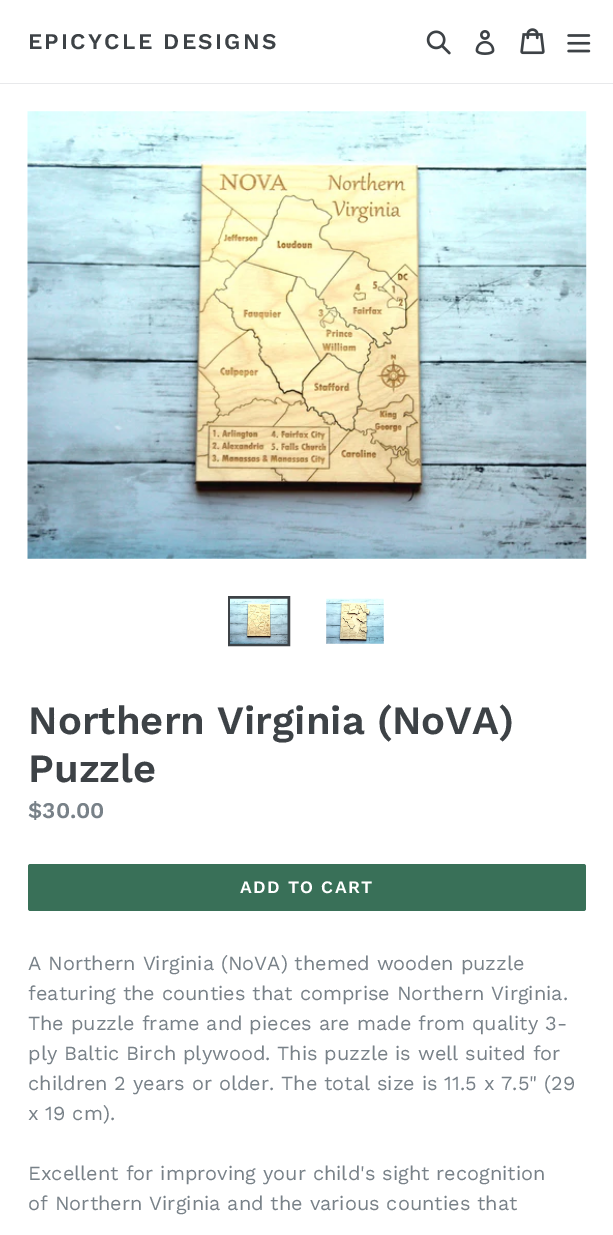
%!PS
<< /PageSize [613 1235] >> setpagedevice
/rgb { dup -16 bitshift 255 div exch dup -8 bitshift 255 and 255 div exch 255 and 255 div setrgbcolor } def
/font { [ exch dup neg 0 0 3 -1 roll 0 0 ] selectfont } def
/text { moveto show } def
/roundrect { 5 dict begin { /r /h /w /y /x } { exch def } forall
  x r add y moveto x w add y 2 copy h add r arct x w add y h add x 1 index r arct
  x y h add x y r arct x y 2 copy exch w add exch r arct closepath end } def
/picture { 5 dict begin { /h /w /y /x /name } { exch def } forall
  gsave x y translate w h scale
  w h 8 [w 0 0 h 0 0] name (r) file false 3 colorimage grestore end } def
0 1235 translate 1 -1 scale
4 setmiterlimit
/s1 { /WorkSans-SemiBold 40 font 16#3D4246 rgb } def
/s2 { /WorkSans-SemiBold 22.5 font 16#788188 rgb } def
/s3 { /WorkSans-Regular 20 font 16#788188 rgb } def
16#FFFFFF rgb
0 0 613 1235 rectfill
16#E8E9EB rgb
0 83 613 1 rectfill
/WorkSans-SemiBold 22.5 font
16#3D4246 rgb
28 49 moveto 2.25 0 (EPICYCLE DESIGNS) ashow
(pic1.raw) 426 30 25 25 picture
(pic2.raw) 475 30 20 25 picture
(pic3.raw) 520 28 25 27 picture
(pic4.raw) 567 34 24 19 picture
(pic5.raw) 27 111 560 448 picture
3 setlinewidth
229.5 597.5 59 47 rectstroke
(pic6.raw) 230 598 58 46 picture
(pic7.raw) 326 598 58 46 picture
s1
(Northern Virginia \(NoVA\)) 28 734 text
(Puzzle) 28 782 text
s2
($30.00) 28 818 text
16#397058 rgb
28 864 558 47 2.5 roundrect fill
/WorkSans-SemiBold 17.5 font
16#FFFFFF rgb
240 893 moveto 1.4 0 (ADD TO CART) ashow
s3
(A Northern Virginia \(NoVA\) themed wooden puzzle) 28 970 text
(featuring the counties that comprise Northern Virginia.) 28 1000 text
(The puzzle frame and pieces are made from quality 3-) 28 1030 text
(ply Baltic Birch plywood. This puzzle is well suited for) 28 1060 text
(children 2 years or older. The total size is 11.5 x 7.5" \(29) 28 1090 text
(x 19 cm\).) 28 1120 text
(Excellent for improving your child's sight recognition) 28 1180 text
(of Northern Virginia and the various counties that) 28 1210 text
showpage
